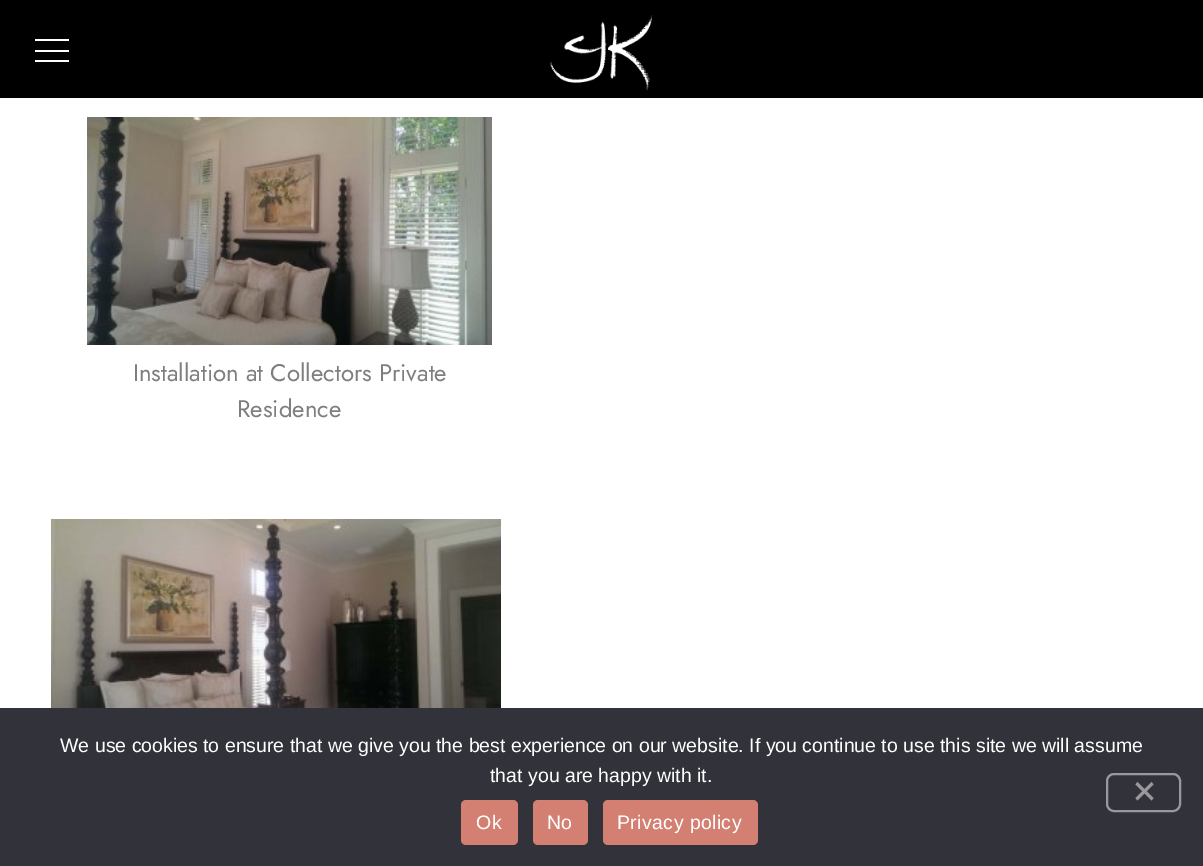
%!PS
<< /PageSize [1203 866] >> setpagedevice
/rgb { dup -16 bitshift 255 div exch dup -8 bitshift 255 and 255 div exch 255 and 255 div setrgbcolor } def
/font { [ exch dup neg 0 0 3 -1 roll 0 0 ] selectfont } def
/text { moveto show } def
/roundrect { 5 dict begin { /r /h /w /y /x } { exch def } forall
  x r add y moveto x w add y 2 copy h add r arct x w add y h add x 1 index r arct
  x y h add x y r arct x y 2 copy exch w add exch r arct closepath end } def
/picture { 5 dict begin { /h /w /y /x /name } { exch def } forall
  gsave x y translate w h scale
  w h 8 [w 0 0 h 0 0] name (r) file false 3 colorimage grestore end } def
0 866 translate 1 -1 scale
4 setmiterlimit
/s1 { /Jost-Regular 24 font 16#7E7E7E rgb } def
/s2 { /LiberationSans-Regular 19.5 font 16#FFFFFF rgb } def
16#FFFFFF rgb
0 0 1203 866 rectfill
16#000000 rgb
0 0 1203 98 rectfill
(pic1.raw) 550 15 103 76 picture
16#FFFFFF rgb
35 50 34 2 rectfill
35 39 34 2 rectfill
35 60 34 2 rectfill
(pic2.raw) 87 117 405 228 picture
s1
(Installation at Collectors Private) 133 381 text
(Residence) 237 417 text
(pic3.raw) 51 519 450 189 picture
16#32323A rgb
0 708 1203 158 rectfill
s2
(We use cookies to ensure that we give you the best experience on our website. If you continue to use this site we will assume) 60 752 text
(that you are happy with it.) 490 782 text
16#99999D rgb
2 setlinewidth
1107 774 73 37 7 roundrect stroke
1151.5 782 moveto 1153.5 784.5 lineto 1137.5 800.5 lineto 1135.5 798 lineto closepath fill
1135.5 784.5 moveto 1137.5 782 lineto 1153.5 798 lineto 1151.5 800.5 lineto closepath fill
16#D37F72 rgb
461 800 57 45 5 roundrect fill
16#FFFFFF rgb
476 829 moveto 0.4 0 (Ok) ashow
16#D37F72 rgb
533 800 55 45 5 roundrect fill
16#FFFFFF rgb
547 829 moveto 0.4 0 (No) ashow
16#D37F72 rgb
603 800 155 45 5 roundrect fill
16#FFFFFF rgb
617 829 moveto 0.4 0 (Privacy policy) ashow
showpage
